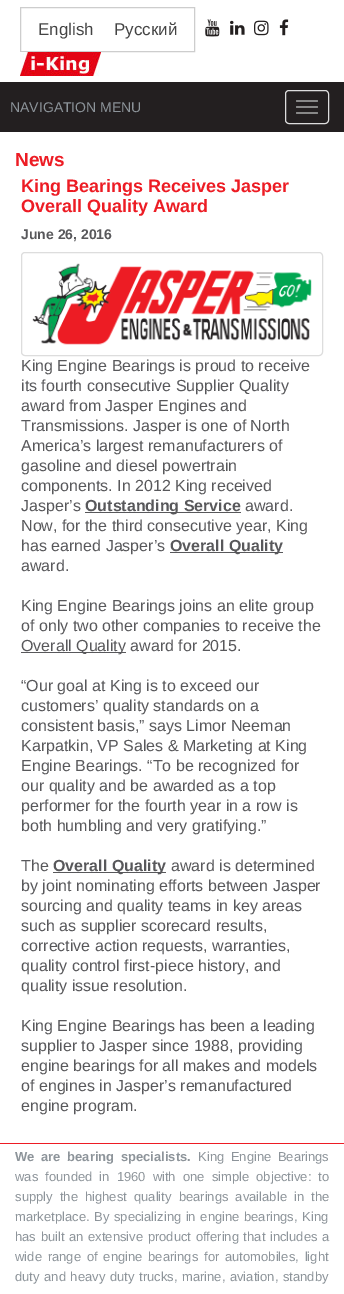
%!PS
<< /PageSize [344 1294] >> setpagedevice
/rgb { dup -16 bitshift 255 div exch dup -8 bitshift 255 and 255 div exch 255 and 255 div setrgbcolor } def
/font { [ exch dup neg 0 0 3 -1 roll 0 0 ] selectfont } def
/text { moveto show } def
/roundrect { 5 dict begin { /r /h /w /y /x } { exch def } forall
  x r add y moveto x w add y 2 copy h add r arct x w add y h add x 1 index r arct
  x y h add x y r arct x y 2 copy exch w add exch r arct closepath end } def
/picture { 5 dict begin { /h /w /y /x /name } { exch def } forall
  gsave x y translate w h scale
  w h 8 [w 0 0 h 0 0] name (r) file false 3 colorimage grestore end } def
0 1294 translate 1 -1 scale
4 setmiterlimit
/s1 { /LiberationSans-Regular 17 font 16#444444 rgb } def
/s2 { /LiberationSans-Regular 14 font 16#8D949A rgb } def
/s3 { /LiberationSans-Bold 19 font 16#ED1C24 rgb } def
/s4 { /LiberationSans-Bold 18 font 16#ED1C24 rgb } def
/s5 { /LiberationSans-Bold 14 font 16#58585B rgb } def
/s6 { /LiberationSans-Regular 16 font 16#58585B rgb } def
/s7 { /LiberationSans-Bold 16 font 16#58585B rgb } def
16#FFFFFF rgb
0 0 344 1294 rectfill
16#CDCDCD rgb
20.5 7.5 174 44 rectstroke
s1
(English) 38 35 text
(Русский) 114 35 text
(pic1.raw) 205 19 15 18 picture
(pic2.raw) 230 20 15 15 picture
(pic3.raw) 254 20 15 16 picture
(pic4.raw) 279 19 10 17 picture
(pic5.raw) 20 52 81 24 picture
16#231F20 rgb
0 82 344 50 rectfill
s2
(NAVIGATION MENU) 10 112 text
16#DDDDDD rgb
285.5 90.5 43 33 3.5 roundrect stroke
16#888888 rgb
296 100 22 2 1 roundrect fill
296 106 22 2 1 roundrect fill
296 112 22 2 1 roundrect fill
16#ED1C24 rgb
0 1143 344 1 rectfill
s3
(News) 15 166 text
s4
(King Bearings Receives Jasper) 21 192 text
(Overall Quality Award) 21 212 text
s5
(June 26, 2016) 21 239 text
16#DDDDDD rgb
21.5 252.5 301 103 3.5 roundrect stroke
(pic6.raw) 32 263 280 82 picture
s6
(King Engine Bearings is proud to receive) 21 371 text
(its fourth consecutive Supplier Quality) 21 391 text
(award from Jasper Engines and) 21 411 text
(Transmissions. Jasper is one of North) 21 431 text
(America’s largest remanufacturers of) 21 451 text
(gasoline and diesel powertrain) 21 471 text
(components. In 2012 King received) 21 491 text
(Jasper’s) 21 511 text
85 512 156 1 rectfill
s7
(Outstanding Service) 85 511 text
s6
(award.) 245 511 text
(Now, for the third consecutive year, King) 21 531 text
(has earned Jasper’s) 21 551 text
170 552 113 1 rectfill
s7
(Overall Quality) 170 551 text
s6
(award.) 21 571 text
(King Engine Bearings joins an elite group) 21 611 text
(of only two other companies to receive the) 21 631 text
21 652 105 1 rectfill
(Overall Quality award for 2015.) 21 651 text
(“Our goal at King is to exceed our) 21 691 text
(customers’ quality standards on a) 21 711 text
(consistent basis,” says Limor Neeman) 21 731 text
(Karpatkin, VP Sales & Marketing at King) 21 751 text
(Engine Bearings. “To be recognized for) 21 771 text
(our quality and be awarded as a top) 21 791 text
(performer for the fourth year in a row is) 21 811 text
(both humbling and very gratifying.”) 21 831 text
(The) 21 871 text
53 872 113 1 rectfill
s7
(Overall Quality) 53 871 text
s6
(award is determined) 171 871 text
(by joint nominating efforts between Jasper) 21 891 text
(sourcing and quality teams in key areas) 21 911 text
(such as supplier scorecard results,) 21 931 text
(corrective action requests, warranties,) 21 951 text
(quality control first-piece history, and) 21 971 text
(quality issue resolution.) 21 991 text
(King Engine Bearings has been a leading) 21 1031 text
(supplier to Jasper since 1988, providing) 21 1051 text
(engine bearings for all makes and models) 21 1071 text
(of engines in Jasper’s remanufactured) 21 1091 text
(engine program.) 21 1111 text
/LiberationSans-Bold 13 font
16#8D949A rgb
15 1161 moveto 3 0 32 (We are bearing specialists.) widthshow
/LiberationSans-Regular 13 font
198 1161 moveto 3 0 32 (King Engine Bearings) widthshow
15 1181 moveto 3.5 0 32 (was founded in 1960 with one simple objective: to) widthshow
15 1201 moveto 3.5 0 32 (supply the highest quality bearings available in the) widthshow
15 1221 moveto 1 0 32 (marketplace. By specializing in engine bearings, King) widthshow
15 1241 moveto 1 0 32 (has built an extensive product offering that includes a) widthshow
15 1261 moveto 2.25 0 32 (wide range of engine bearings for automobiles, light) widthshow
15 1281 moveto 1 0 32 (duty and heavy duty trucks, marine, aviation, standby) widthshow
showpage
